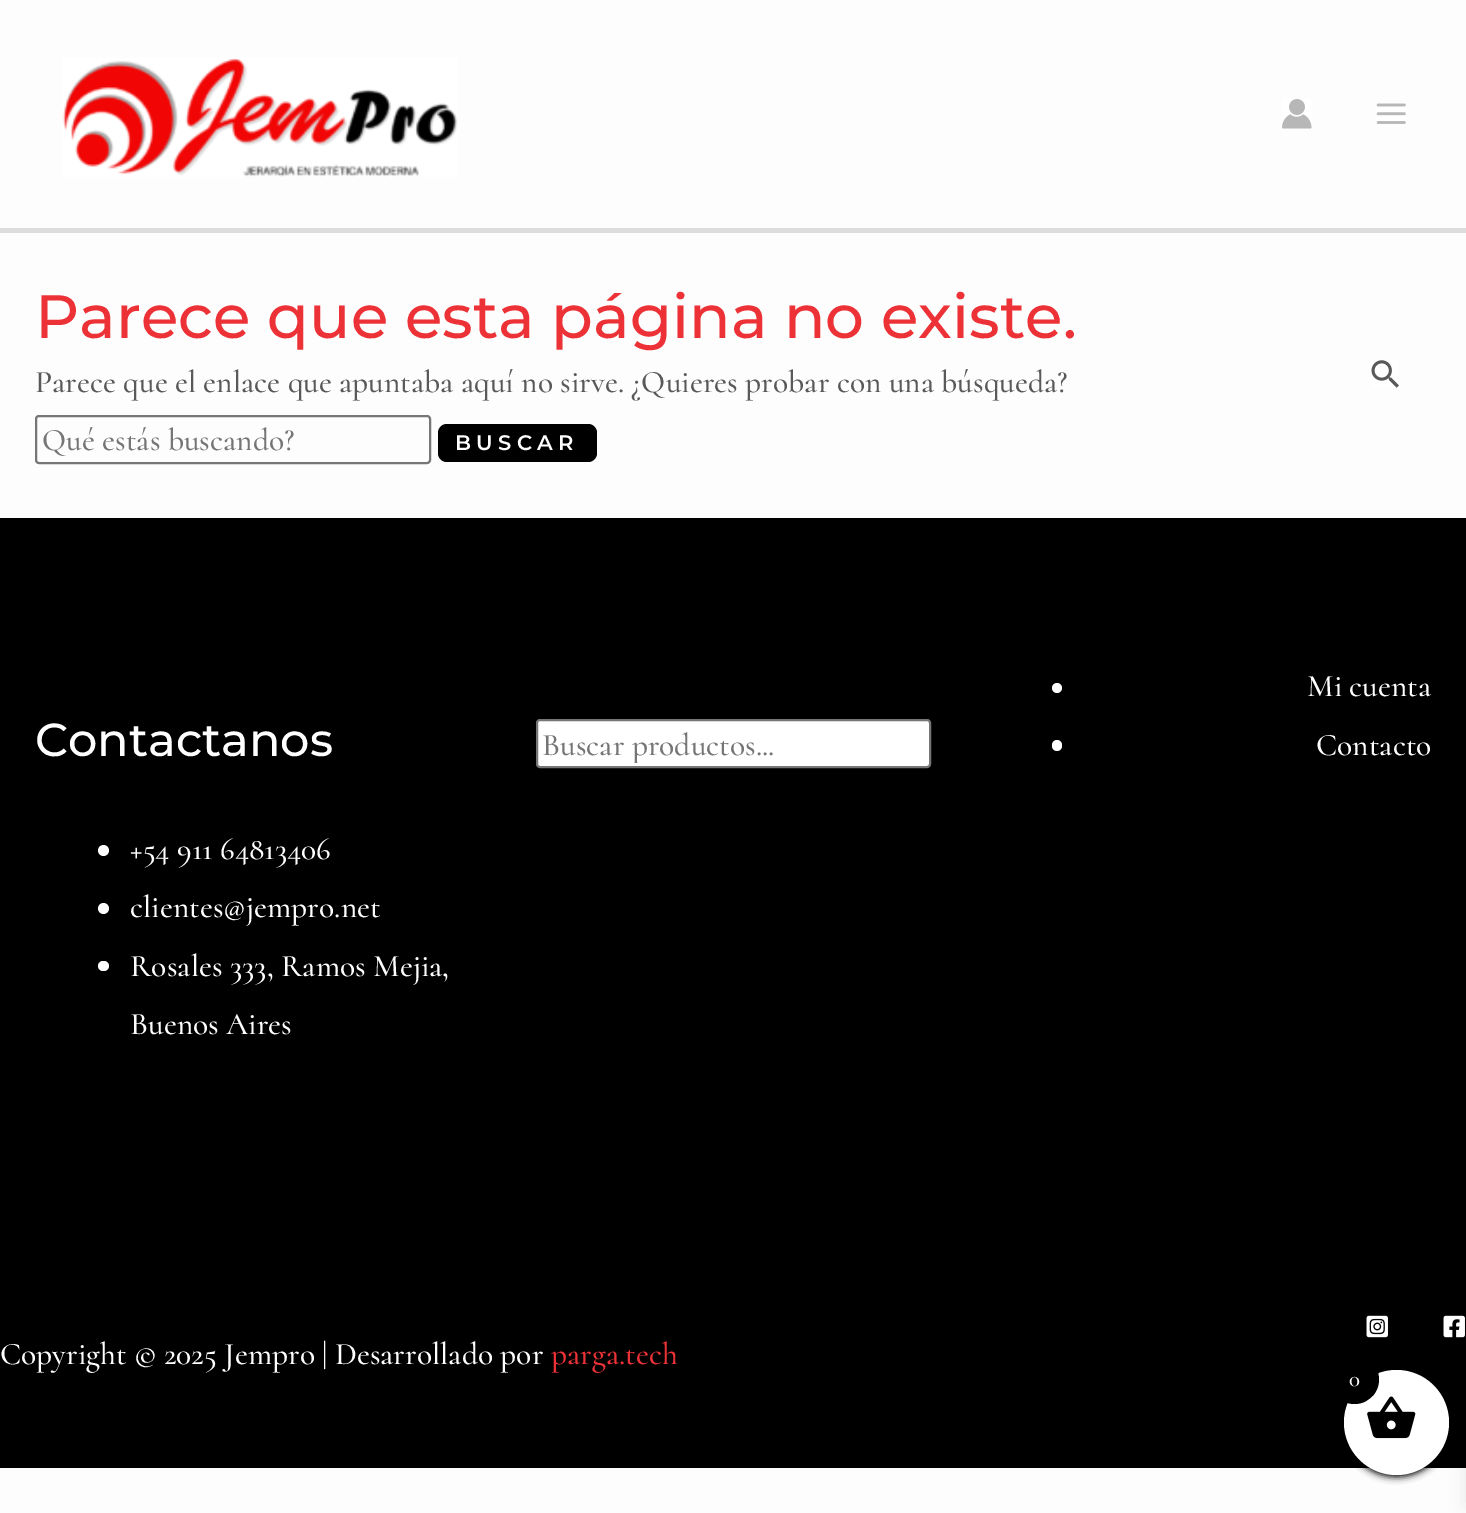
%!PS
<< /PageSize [1466 1513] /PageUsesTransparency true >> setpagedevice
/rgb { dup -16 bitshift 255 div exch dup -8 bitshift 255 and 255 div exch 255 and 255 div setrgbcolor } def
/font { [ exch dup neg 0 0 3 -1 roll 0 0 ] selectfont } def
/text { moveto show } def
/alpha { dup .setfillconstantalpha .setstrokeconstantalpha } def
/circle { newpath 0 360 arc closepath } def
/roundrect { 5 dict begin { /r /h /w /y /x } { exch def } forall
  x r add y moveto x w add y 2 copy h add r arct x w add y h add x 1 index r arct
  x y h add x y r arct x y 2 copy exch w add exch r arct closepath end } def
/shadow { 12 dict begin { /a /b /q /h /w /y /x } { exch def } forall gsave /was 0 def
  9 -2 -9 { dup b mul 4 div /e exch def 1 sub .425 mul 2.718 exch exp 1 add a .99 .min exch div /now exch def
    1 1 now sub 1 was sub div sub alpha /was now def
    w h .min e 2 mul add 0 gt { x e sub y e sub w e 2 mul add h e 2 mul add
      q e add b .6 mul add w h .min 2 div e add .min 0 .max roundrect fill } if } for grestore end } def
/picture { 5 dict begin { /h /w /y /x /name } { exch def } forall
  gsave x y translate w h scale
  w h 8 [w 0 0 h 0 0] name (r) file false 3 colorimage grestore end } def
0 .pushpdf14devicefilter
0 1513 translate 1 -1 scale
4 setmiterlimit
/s1 { /Montserrat-Medium 61.25 font 16#ED3237 rgb } def
/s2 { /Cormorant-Medium 31.5 font 16#595959 rgb } def
/s3 { /Cormorant-Medium 31.5 font 16#757575 rgb } def
/s4 { /Montserrat-Medium 46.25 font 16#FFFFFF rgb } def
/s5 { /Cormorant-Medium 31.5 font 16#FFFFFF rgb } def
/s6 { /Cormorant-Medium 31.5 font 16#ED3237 rgb } def
/s7 { /Cormorant-Medium 23 font 16#FFFFFF rgb } def
16#FDFDFD rgb
0 0 1466 1513 rectfill
16#DDDDDD rgb
0 228 1466 5 rectfill
(pic1.raw) 62 58 396 119 picture
(pic2.raw) 1282 99 30 30 picture
(pic3.raw) 1376 103 30 21 picture
s1
(Parece que esta página no existe.) 35 338 text
s2
(Parece que el enlace que apuntaba aquí no sirve. ¿Quieres probar con una búsqueda?) 35 392 text
(pic4.raw) 1371 360 28 28 picture
16#767676 rgb
2 setlinewidth
36 416 394 47 3 roundrect stroke
s3
(Qué estás buscando?) 42 450 text
16#000000 rgb
438 424 159 38 9 roundrect fill
/Montserrat-SemiBold 21 font
16#FFFFFF rgb
455 450 moveto 5.25 0 (BUSCAR) ashow
16#000000 rgb
0 518 1466 950 rectfill
s4
(Contactanos) 35 756 text
103.5 850.5 5.5 circle fill
s5
(+54 911 64813406) 130 859 text
103.5 908.5 5.5 circle fill
(clientes@jempro.net) 130 917 text
98 961 11 10 5 roundrect fill
(Rosales 333, Ramos Mejia,) 130 976 text
(Buenos Aires) 130 1034 text
537 720 393 47 3 roundrect gsave fill grestore
16#767676 rgb
stroke
gsave
543 725 353 38 rectclip
s3
(Buscar productos...) 542 755 text
grestore
16#FFFFFF rgb
1057 688 5 circle fill
(Mi cuenta) 1307 696 text
1052 740 10 11 5 roundrect fill
(Contacto) 1316 755 text
(pic5.raw) 1366 1315 22 23 picture
(pic6.raw) 1443 1315 22 23 picture
(Copyright © 2025 Jempro | Desarrollado por) 0 1364 text
s6
(parga.tech) 551 1364 text
16#000000 rgb
1344 1372 105 105 52.5 3.5 1 shadow
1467 1390 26 115 0 9 0.1 shadow
16#FFFFFF rgb
1396.5 1422.5 52.5 circle fill
16#000000 rgb
1354.5 1379.5 24.5 circle fill
s7
(0) 1349 1386 text
(pic7.raw) 1367 1396 49 43 picture
.poppdf14devicefilter showpage
